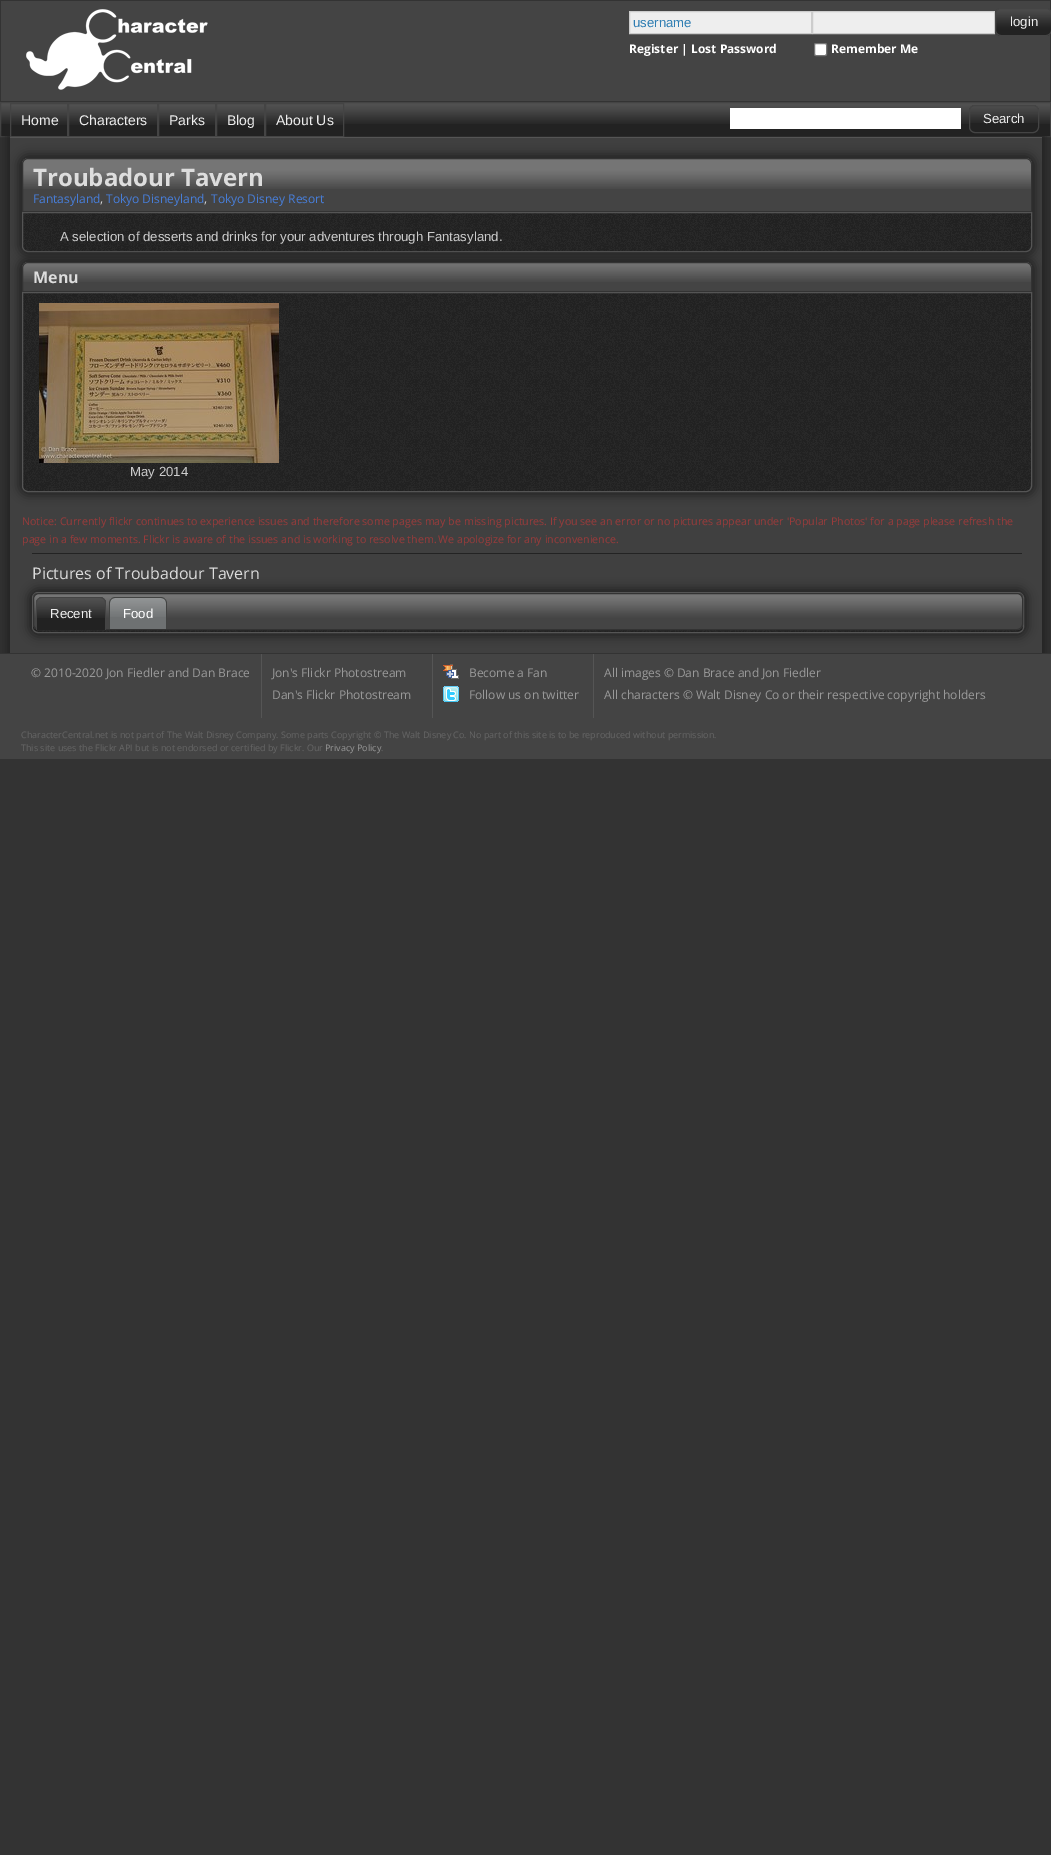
%!PS
<< /PageSize [1051 1855] /PageUsesTransparency true >> setpagedevice
/rgb { dup -16 bitshift 255 div exch dup -8 bitshift 255 and 255 div exch 255 and 255 div setrgbcolor } def
/font { [ exch dup neg 0 0 3 -1 roll 0 0 ] selectfont } def
/text { moveto show } def
/alpha { dup .setfillconstantalpha .setstrokeconstantalpha } def
/roundrect { 5 dict begin { /r /h /w /y /x } { exch def } forall
  x r add y moveto x w add y 2 copy h add r arct x w add y h add x 1 index r arct
  x y h add x y r arct x y 2 copy exch w add exch r arct closepath end } def
/shadow { 12 dict begin { /a /b /q /h /w /y /x } { exch def } forall gsave /was 0 def
  9 -2 -9 { dup b mul 4 div /e exch def 1 sub .425 mul 2.718 exch exp 1 add a .99 .min exch div /now exch def
    1 1 now sub 1 was sub div sub alpha /was now def
    w h .min e 2 mul add 0 gt { x e sub y e sub w e 2 mul add h e 2 mul add
      q e add b .6 mul add w h .min 2 div e add .min 0 .max roundrect fill } if } for grestore end } def
/picture { 5 dict begin { /h /w /y /x /name } { exch def } forall
  gsave x y translate w h scale
  w h 8 [w 0 0 h 0 0] name (r) file false 3 colorimage grestore end } def
0 .pushpdf14devicefilter
0 1855 translate 1 -1 scale
4 setmiterlimit
/s1 { /LiberationSans-Regular 13.2 font 16#2E7DB2 rgb } def
/s2 { /LiberationSans-Regular 13.2 font 16#EEEEEE rgb } def
/s3 { /OpenSans-Bold 12 font 16#FFFFFF rgb } def
/s4 { /LiberationSans-Regular 14 font 16#EEEEEE rgb } def
/s5 { /OpenSans-Bold 24 font 16#DDDDDD rgb } def
/s6 { /OpenSans-Regular 12 font 16#477EDA rgb } def
/s7 { /OpenSans-Regular 12 font 16#DDDDDD rgb } def
/s8 { /LiberationSans-Regular 13.2 font 16#CCCCCC rgb } def
/s9 { /OpenSans-Bold 16 font 16#DDDDDD rgb } def
/s10 { /OpenSans-Regular 10.67 font 16#993B3B rgb } def
/s11 { /OpenSans-Regular 16 font 16#DDDDDD rgb } def
/s12 { /LiberationSans-Regular 13.2 font 16#FFFFFF rgb } def
/s13 { /OpenSans-Regular 12 font 16#999999 rgb } def
/s14 { /OpenSans-Regular 9 font 16#666666 rgb } def
/s15 { /OpenSans-Regular 9 font 16#999999 rgb } def
16#333333 rgb
0 0 1051 1855 rectfill
16#444444 rgb
1 1 1049 100 rectfill
(pic1.raw) 26 9 182 81 picture
16#EEEEEE rgb
629.5 11.5 moveto 811.5 11.5 lineto 811.5 33.5 lineto 629.5 33.5 lineto closepath gsave fill grestore
16#CCCCCC rgb
stroke
s1
(username) 633 27 text
16#EEEEEE rgb
812.5 11.5 moveto 994.5 11.5 lineto 994.5 33.5 lineto 812.5 33.5 lineto closepath gsave fill grestore
16#CCCCCC rgb
stroke
(pic2.raw) 995 8 56 28 picture
16#444444 rgb
995.5 8.5 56 27 5.5 roundrect stroke
s2
(login) 1010 26 text
s3
(Register | Lost Password) 629 53 text
814.5 43.5 12 12 1.5 roundrect gsave fill grestore
16#767676 rgb
stroke
s3
(Remember Me) 831 53 text
16#222222 rgb
1 124 1049 12 rectfill
(pic3.raw) 1 103 1049 21 picture
16#444444 rgb
0.5 102.5 1050 34 rectstroke
16#222222 rgb
6 133 1040 524 0 5 1 shadow
(pic4.raw) 11 104 56 21 picture
16#444444 rgb
10.5 103.5 57 33 rectstroke
s4
(Home) 21 125 text
(pic5.raw) 69 104 88 21 picture
16#444444 rgb
68.5 103.5 89 33 rectstroke
s4
(Characters) 79 125 text
(pic4.raw) 159 104 56 21 picture
16#444444 rgb
158.5 103.5 57 33 rectstroke
s4
(Parks) 169 125 text
(pic6.raw) 217 104 47 21 picture
16#444444 rgb
216.5 103.5 48 33 rectstroke
s4
(Blog) 227 125 text
(pic7.raw) 266 104 77 21 picture
16#444444 rgb
265.5 103.5 78 33 rectstroke
s4
(About Us) 276 125 text
16#404040 rgb
10 138 1032 515 rectfill
16#555555 rgb
10 137 1032 1 rectfill
16#222222 rgb
18 154 1018 102 10 5 1 shadow
16#444444 rgb
28 158 moveto 1026 158 lineto 1029.5 158 1032 160.5 1032 164 curveto 1032 212 lineto 22 212 lineto 22 164 lineto 22 160.5 24.5 158 28 158 curveto closepath fill
(pic8.raw) 22 158 1010 31 picture
16#333333 rgb
28 158.5 moveto 1026 158.5 lineto 1029 158.5 1031.5 161 1031.5 164 curveto 1031.5 211.5 lineto 22.5 211.5 lineto 22.5 164 lineto 22.5 161 25 158.5 28 158.5 curveto closepath stroke
s5
(Troubadour Tavern) 33 186 text
s6
(Fantasyland) 33 203 text
s7
(,) 100 203 text
s6
(Tokyo Disneyland) 106 203 text
s7
(,) 204 203 text
s6
(Tokyo Disney Resort) 211 203 text
(pic9.raw) 22 213 1010 39 picture
16#555555 rgb
22.5 212.5 moveto 1031.5 212.5 lineto 1031.5 246 lineto 1031.5 249 1029 251.5 1026 251.5 curveto 28 251.5 lineto 25 251.5 22.5 249 22.5 246 curveto closepath stroke
16#222222 rgb
18 258 1018 238 10 5 1 shadow
s8
(A selection of desserts and drinks for your adventures through Fantasyland.) 60 241 text
16#444444 rgb
28 262 moveto 1026 262 lineto 1029.5 262 1032 264.5 1032 268 curveto 1032 292 lineto 22 292 lineto 22 268 lineto 22 264.5 24.5 262 28 262 curveto closepath fill
(pic10.raw) 22 262 1010 20 picture
16#333333 rgb
28 262.5 moveto 1026 262.5 lineto 1029 262.5 1031.5 265 1031.5 268 curveto 1031.5 291.5 lineto 22.5 291.5 lineto 22.5 268 lineto 22.5 265 25 262.5 28 262.5 curveto closepath stroke
s9
(Menu) 33 283 text
(pic11.raw) 22 293 1010 199 picture
16#555555 rgb
22.5 292.5 moveto 1031.5 292.5 lineto 1031.5 486 lineto 1031.5 489 1029 491.5 1026 491.5 curveto 28 491.5 lineto 25 491.5 22.5 489 22.5 486 curveto closepath stroke
(pic12.raw) 39 303 240 160 picture
s8
(May 2014) 130 476 text
s10
(Notice: Currently flickr continues to experience issues and therefore some pages may be missing pictures. If you see an error or no pictures appear under 'Popular Photos' for a page please refresh the) 22 525 text
(page in a few moments. Flickr is aware of the issues and is working to resolve them.) 22 543 text
(We apologize for any inconvenience.) 438 543 text
16#232323 rgb
32 553 990 1 rectfill
s11
(Pictures of Troubadour Tavern) 32 579 text
16#222222 rgb
28 588 1000 49 10 5 1 shadow
(pic13.raw) 32 592 992 41 picture
16#555555 rgb
32.5 592.5 991 40 5.5 roundrect stroke
(pic14.raw) 33 593 990 37 picture
16#333333 rgb
33.5 593.5 989 36 5.5 roundrect stroke
16#222222 rgb
42 597 moveto 100 597 lineto 103.5 597 106 599.5 106 603 curveto 106 630 lineto 36 630 lineto 36 603 lineto 36 599.5 38.5 597 42 597 curveto closepath fill
(pic15.raw) 36 597 70 21 picture
16#444444 rgb
42 597 moveto 100 597 lineto 103 597 106 600 106 603 curveto 106 630 lineto 36 630 lineto 36 603 lineto 36 600 39 597 42 597 curveto closepath 42 598 moveto 100 598 lineto 103 598 105 600 105 603 curveto 105 630 lineto 37 630 lineto 37 603 lineto 37 600 39 598 42 598 curveto closepath eofill
s2
(Recent) 50 618 text
16#6E7172 rgb
115 597 moveto 161 597 lineto 164.5 597 167 599.5 167 603 curveto 167 629 lineto 109 629 lineto 109 603 lineto 109 599.5 111.5 597 115 597 curveto closepath fill
(pic16.raw) 109 597 58 20 picture
16#424342 rgb
115 597 moveto 161 597 lineto 164 597 167 600 167 603 curveto 167 629 lineto 109 629 lineto 109 603 lineto 109 600 112 597 115 597 curveto closepath 115 598 moveto 161 598 lineto 164 598 166 600 166 603 curveto 166 629 lineto 110 629 lineto 110 603 lineto 110 600 112 598 115 598 curveto closepath eofill
s12
(Food) 123 618 text
16#444444 rgb
0 654 1051 105 rectfill
16#333333 rgb
0 653 1051 1 rectfill
s13
(© 2010-2020 Jon Fiedler and Dan Brace) 31 677 text
16#555555 rgb
261 654 1 64 rectfill
s13
(Jon's Flickr Photostream) 272 677 text
(Dan's Flickr Photostream) 272 699 text
16#555555 rgb
432 654 1 64 rectfill
(pic17.raw) 443 664 16 15 picture
s13
(Become a Fan) 469 677 text
(pic18.raw) 443 686 16 16 picture
(Follow us on twitter) 469 699 text
16#555555 rgb
593 654 1 64 rectfill
s13
(All images © Dan Brace and Jon Fiedler) 604 677 text
(All characters © Walt Disney Co or their respective copyright holders) 604 699 text
s14
(CharacterCentral.net is not part of The Walt Disney Company. Some parts Copyright © The Walt Disney Co. No part of this site is to be reproduced without permission.) 21 738 text
(This site uses the Flickr API but is not endorsed or certified by Flickr. Our) 21 751 text
s15
(Privacy Policy) 325 751 text
s14
(.) 381 751 text
16#FFFFFF rgb
730 108 231 21 rectfill
16#222222 rgb
969 105 70 28 6 roundrect fill
(pic19.raw) 969 105 70 18 picture
16#444444 rgb
969.5 105.5 69 27 5.5 roundrect stroke
s2
(Search) 983 123 text
.poppdf14devicefilter showpage
